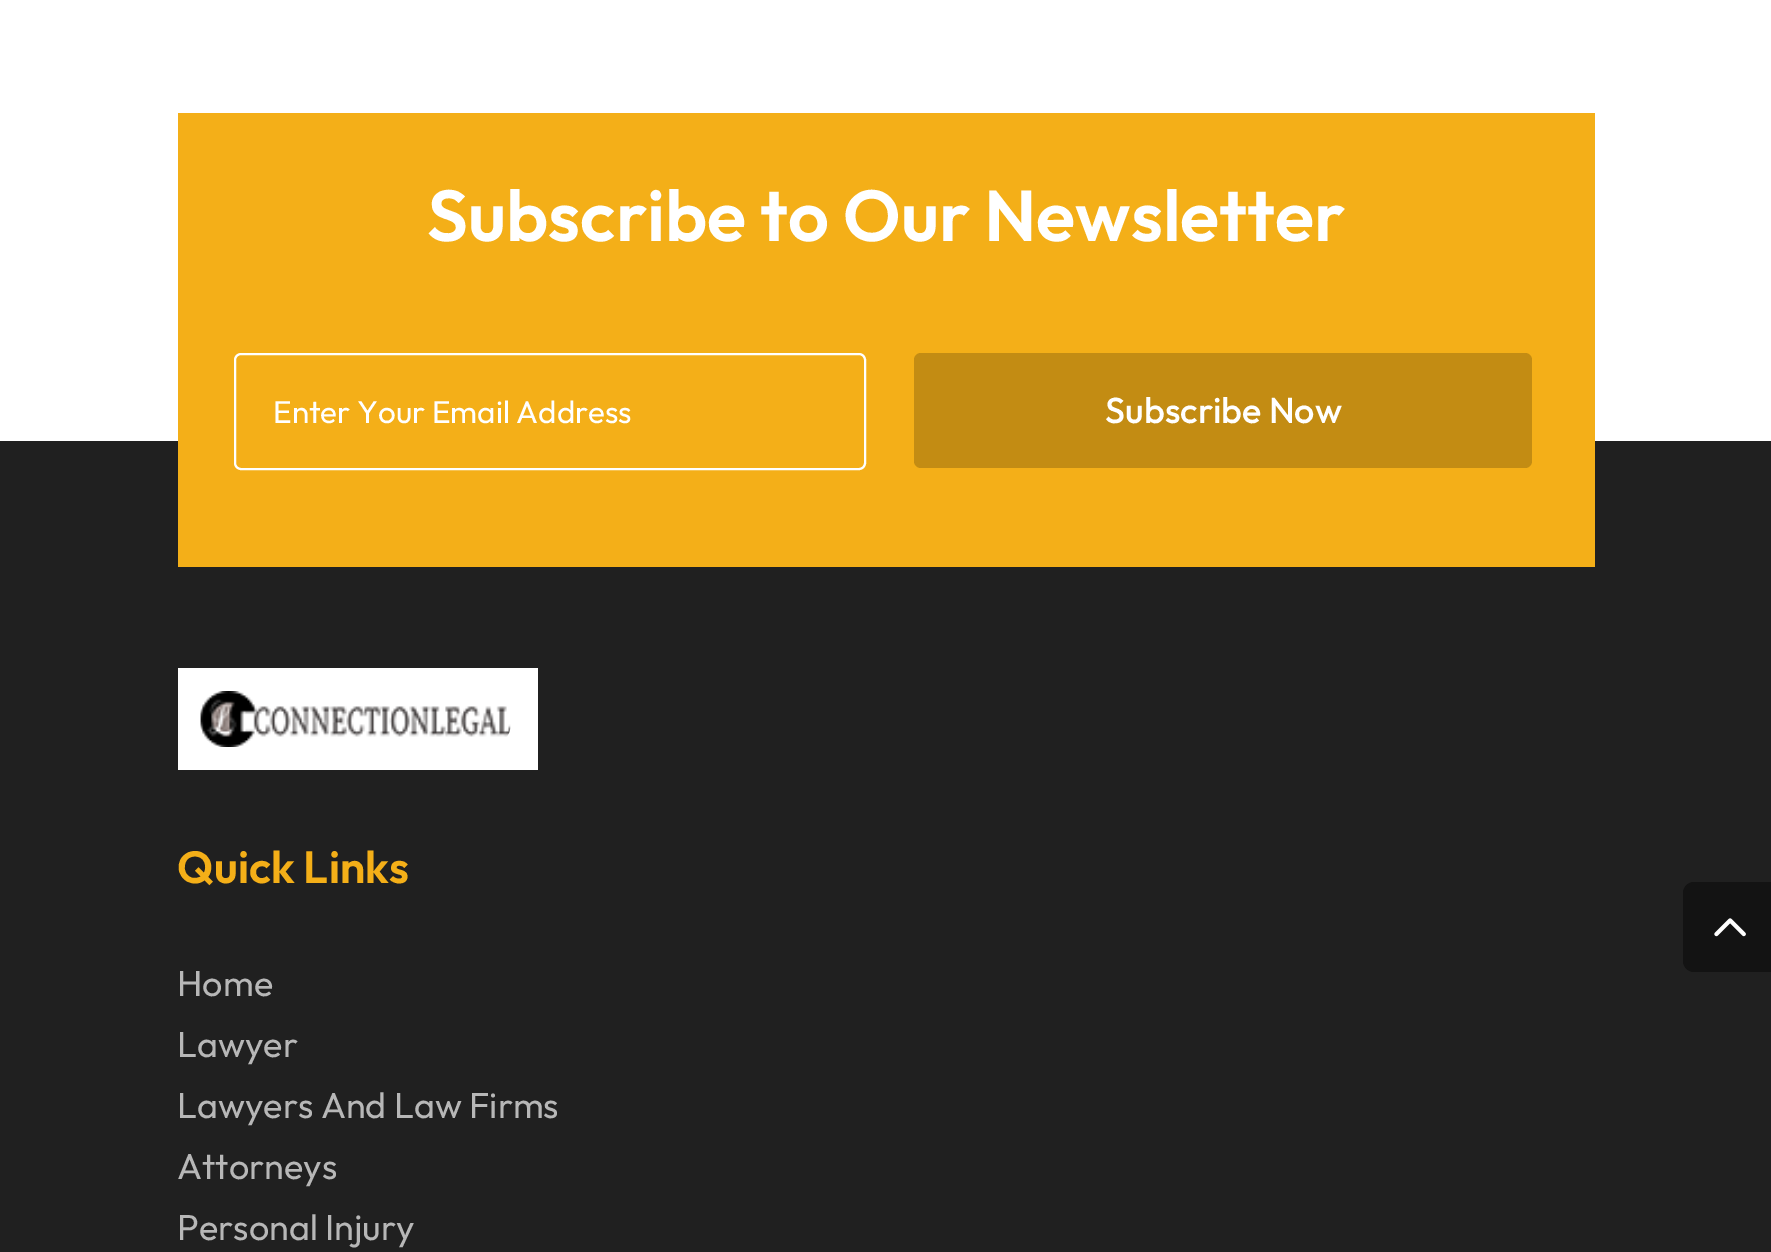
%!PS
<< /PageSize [1771 1252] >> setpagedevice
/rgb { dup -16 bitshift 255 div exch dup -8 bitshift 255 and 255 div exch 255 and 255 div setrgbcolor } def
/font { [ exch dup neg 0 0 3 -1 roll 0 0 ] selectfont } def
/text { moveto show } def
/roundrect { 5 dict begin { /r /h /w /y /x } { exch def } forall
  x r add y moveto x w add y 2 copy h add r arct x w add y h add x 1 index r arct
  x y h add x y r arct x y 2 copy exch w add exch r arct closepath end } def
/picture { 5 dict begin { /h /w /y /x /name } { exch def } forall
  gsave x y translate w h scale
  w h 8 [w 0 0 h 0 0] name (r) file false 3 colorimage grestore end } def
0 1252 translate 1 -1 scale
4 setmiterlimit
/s1 { /Outfit-Thin 72 font 16#FFFFFF rgb } def
/s2 { /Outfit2-Thin 31.5 font 16#FFFFFF rgb } def
/s3 { /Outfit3-Thin 36 font 16#FFFFFF rgb } def
/s4 { /Outfit-Thin 45 font 16#F4AF18 rgb } def
/s5 { /Outfit2-Thin 36 font 16#B7B7B7 rgb } def
16#FFFFFF rgb
0 0 1771 1252 rectfill
16#202020 rgb
0 441 1771 811 rectfill
16#F4AF18 rgb
178 113 1417 454 rectfill
s1
(Subscribe to Our Newsletter) 427 241 text
2 setlinewidth
235 354 630 115 6 roundrect stroke
s2
(Enter Your Email Address) 273 423 text
16#C38C13 rgb
914 353 618 115 7 roundrect fill
s3
(Subscribe Now) 1105 423 text
178 668 360 102 rectfill
(pic1.raw) 200 691 311 56 picture
s4
(Quick Links) 177 883 text
s5
(Home) 177 996 text
(Lawyer) 177 1057 text
(Lawyers And Law Firms) 177 1118 text
(Attorneys) 177 1179 text
(Personal Injury) 177 1240 text
16#131313 rgb
1694 882 moveto 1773 882 lineto 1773 972 lineto 1694 972 lineto 1688 972 1683 967 1683 961 curveto 1683 893 lineto 1683 887 1688 882 1694 882 curveto closepath fill
(pic2.raw) 1714 918 32 19 picture
showpage
